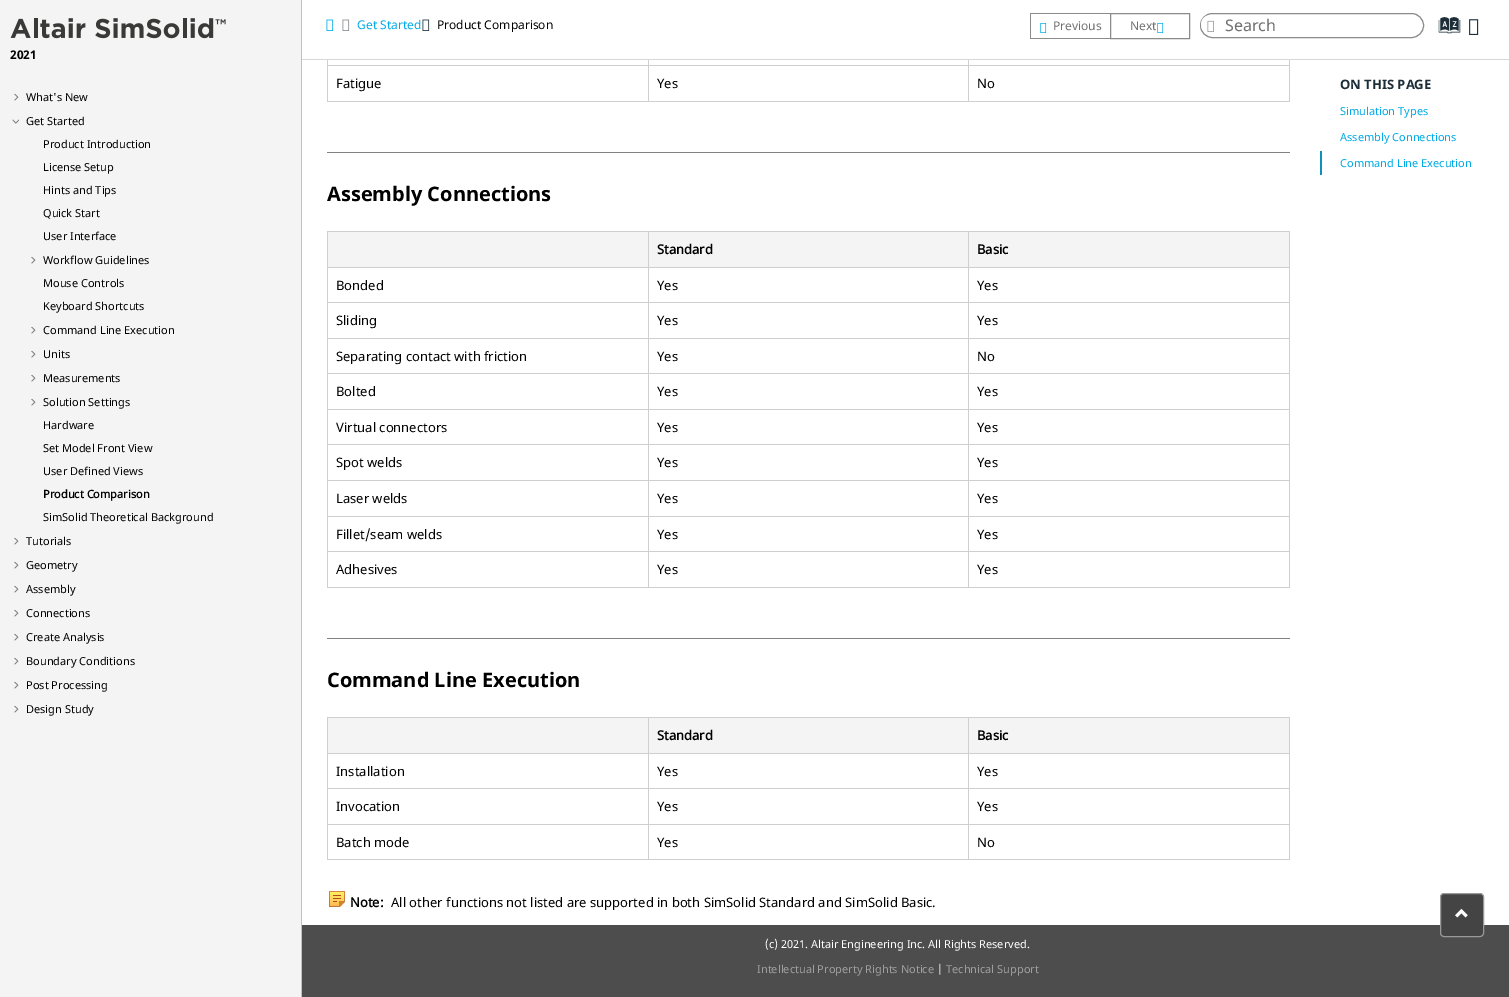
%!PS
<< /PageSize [1509 997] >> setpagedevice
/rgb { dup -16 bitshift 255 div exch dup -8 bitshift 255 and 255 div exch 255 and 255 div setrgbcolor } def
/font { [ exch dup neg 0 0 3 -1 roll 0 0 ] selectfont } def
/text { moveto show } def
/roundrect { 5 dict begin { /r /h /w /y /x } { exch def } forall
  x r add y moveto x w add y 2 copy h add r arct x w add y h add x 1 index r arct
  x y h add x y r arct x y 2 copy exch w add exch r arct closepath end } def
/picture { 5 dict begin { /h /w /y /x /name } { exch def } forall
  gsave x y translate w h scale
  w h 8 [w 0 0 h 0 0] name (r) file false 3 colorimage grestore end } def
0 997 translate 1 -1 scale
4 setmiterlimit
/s1 { /NotoSans-Bold 12 font 16#000000 rgb } def
/s2 { /NotoSans-Regular 11 font 16#000000 rgb } def
/s3 { /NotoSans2-Bold 11 font 16#000000 rgb } def
/s4 { /NotoSans-Regular 12 font 16#00AAE6 rgb } def
/s5 { /NotoSans-Regular 12 font 16#000000 rgb } def
/s6 { /NotoSans-Regular 12 font 16#707070 rgb } def
/s7 { /NotoSans-Regular 16 font 16#707070 rgb } def
/s8 { /Oxygen-Regular 23 font 16#1D2E38 rgb } def
/s9 { /NotoSans-Regular 13 font 16#000000 rgb } def
/s10 { /NotoSans-Bold 20 font 16#000000 rgb } def
/s11 { /NotoSans2-Bold 13 font 16#000000 rgb } def
/s12 { /NotoSans-Bold 13 font 16#1D2E38 rgb } def
/s13 { /NotoSans-Regular 11 font 16#00AAE6 rgb } def
/s14 { /NotoSans-Regular 11 font 16#FFFFFF rgb } def
/s15 { /NotoSans-Regular 11 font 16#9F9F9F rgb } def
16#FFFFFF rgb
0 0 1509 997 rectfill
16#F4F4F4 rgb
0 0 301 997 rectfill
16#C0C0C0 rgb
301 0 1 997 rectfill
(pic1.raw) 10 18 216 21 picture
s1
(2021) 10 59 text
(pic2.raw) 14 93 5 8 picture
s2
(What's New) 26 101 text
(pic3.raw) 12 119 7 5 picture
(Get Started) 26 125 text
(Product Introduction) 43 148 text
(License Setup) 43 171 text
(Hints and Tips) 43 194 text
(Quick Start) 43 217 text
(User Interface) 43 240 text
(pic2.raw) 31 256 5 8 picture
(Workflow Guidelines) 43 264 text
(Mouse Controls) 43 287 text
(Keyboard Shortcuts) 43 310 text
(pic2.raw) 31 326 5 8 picture
(Command Line Execution) 43 334 text
(pic2.raw) 31 350 5 8 picture
(Units) 43 358 text
(pic2.raw) 31 374 5 8 picture
(Measurements) 43 382 text
(pic2.raw) 31 398 5 8 picture
(Solution Settings) 43 406 text
(Hardware) 43 429 text
(Set Model Front View) 43 452 text
(User Defined Views) 43 475 text
s3
(Product Comparison) 43 498 text
s2
(SimSolid Theoretical Background) 43 521 text
(pic2.raw) 14 537 5 8 picture
(Tutorials) 26 545 text
(pic2.raw) 14 561 5 8 picture
(Geometry) 26 569 text
(pic2.raw) 14 585 5 8 picture
(Assembly) 26 593 text
(pic2.raw) 14 609 5 8 picture
(Connections) 26 617 text
(pic2.raw) 14 633 5 8 picture
(Create Analysis) 26 641 text
(pic2.raw) 14 657 5 8 picture
(Boundary Conditions) 26 665 text
(pic2.raw) 14 681 5 8 picture
(Post Processing) 26 689 text
(pic2.raw) 14 705 5 8 picture
(Design Study) 26 713 text
16#D8D8D8 rgb
302 59 1207 1 rectfill
(pic4.raw) 326 19 8 12 picture
(pic5.raw) 342 19 8 12 picture
s4
(Get Started) 357 29 text
(pic6.raw) 422 19 8 12 picture
s5
(Product Comparison) 437 29 text
16#8B8B8B rgb
1030 13 80 1 rectfill
1030 38 80 1 rectfill
1030 13 1 26 rectfill
(pic7.raw) 1040 23 7 10 picture
s6
(Previous) 1053 30 text
16#8B8B8B rgb
1110.5 13.5 79 25 rectstroke
s6
(Next) 1130 30 text
(pic7.raw) 1157 23 7 10 picture
16#8B8B8B rgb
1200.5 13.5 223 24 12 roundrect stroke
16#FFFFFF rgb
1201 15 20 19 9.5 roundrect fill
(pic8.raw) 1207 20 7 12 picture
s7
(Search) 1225 31 text
s8
(a) 1441 36 text
(pic9.raw) 1469 19 10 16 picture
16#CFCFCF rgb
1289 60 1 42 rectfill
327 101 963 1 rectfill
327 60 1 42 rectfill
968 65 322 1 rectfill
968 65 1 37 rectfill
648 65 321 1 rectfill
648 65 1 37 rectfill
327 65 322 1 rectfill
648 60 1 6 rectfill
968 60 1 6 rectfill
s9
(Fatigue) 336 88 text
(Yes) 657 88 text
(No) 977 88 text
16#828282 rgb
327 152 963 1 rectfill
s10
(Assembly Connections) 327 201 text
16#CFCFCF rgb
327 231 963 1 rectfill
1289 231 1 357 rectfill
327 587 963 1 rectfill
327 231 1 357 rectfill
16#F4F4F4 rgb
328 232 320 35 rectfill
649 232 319 35 rectfill
16#CFCFCF rgb
968 267 322 1 rectfill
968 302 322 1 rectfill
968 338 322 1 rectfill
968 373 322 1 rectfill
968 409 322 1 rectfill
968 444 322 1 rectfill
968 480 322 1 rectfill
968 516 322 1 rectfill
968 551 322 1 rectfill
968 551 1 37 rectfill
648 551 321 1 rectfill
968 516 1 36 rectfill
648 516 321 1 rectfill
968 480 1 37 rectfill
648 480 321 1 rectfill
968 444 1 37 rectfill
648 444 321 1 rectfill
968 409 1 36 rectfill
648 409 321 1 rectfill
968 373 1 37 rectfill
648 373 321 1 rectfill
968 338 1 36 rectfill
648 338 321 1 rectfill
968 302 1 37 rectfill
648 302 321 1 rectfill
968 267 1 36 rectfill
648 267 321 1 rectfill
648 551 1 37 rectfill
327 551 322 1 rectfill
648 516 1 36 rectfill
327 516 322 1 rectfill
648 480 1 37 rectfill
327 480 322 1 rectfill
648 444 1 37 rectfill
327 444 322 1 rectfill
648 409 1 36 rectfill
327 409 322 1 rectfill
648 373 1 37 rectfill
327 373 322 1 rectfill
648 338 1 36 rectfill
327 338 322 1 rectfill
648 302 1 37 rectfill
327 302 322 1 rectfill
648 267 1 36 rectfill
327 267 322 1 rectfill
648 231 1 37 rectfill
s11
(Standard) 657 254 text
16#F4F4F4 rgb
969 232 320 35 rectfill
16#CFCFCF rgb
968 231 1 37 rectfill
s11
(Basic) 977 254 text
s9
(Bonded) 336 290 text
(Yes) 657 290 text
(Yes) 977 290 text
(Sliding) 336 325 text
(Yes) 657 325 text
(Yes) 977 325 text
(Separating contact with friction) 336 361 text
(Yes) 657 361 text
(No) 977 361 text
(Bolted) 336 396 text
(Yes) 657 396 text
(Yes) 977 396 text
(Virtual connectors) 336 432 text
(Yes) 657 432 text
(Yes) 977 432 text
(Spot welds) 336 467 text
(Yes) 657 467 text
(Yes) 977 467 text
(Laser welds) 336 503 text
(Yes) 657 503 text
(Yes) 977 503 text
(Fillet/seam welds) 336 539 text
(Yes) 657 539 text
(Yes) 977 539 text
(Adhesives) 336 574 text
(Yes) 657 574 text
(Yes) 977 574 text
16#828282 rgb
327 638 963 1 rectfill
s10
(Command Line Execution) 327 687 text
16#CFCFCF rgb
327 717 963 1 rectfill
1289 717 1 143 rectfill
327 859 963 1 rectfill
327 717 1 143 rectfill
16#F4F4F4 rgb
328 718 320 35 rectfill
649 718 319 35 rectfill
16#CFCFCF rgb
968 753 322 1 rectfill
968 788 322 1 rectfill
968 824 322 1 rectfill
968 824 1 36 rectfill
648 824 321 1 rectfill
968 788 1 37 rectfill
648 788 321 1 rectfill
968 753 1 36 rectfill
648 753 321 1 rectfill
648 824 1 36 rectfill
327 824 322 1 rectfill
648 788 1 37 rectfill
327 788 322 1 rectfill
648 753 1 36 rectfill
327 753 322 1 rectfill
648 717 1 37 rectfill
s11
(Standard) 657 740 text
16#F4F4F4 rgb
969 718 320 35 rectfill
16#CFCFCF rgb
968 717 1 37 rectfill
s11
(Basic) 977 740 text
s9
(Installation) 336 776 text
(Yes) 657 776 text
(Yes) 977 776 text
(Invocation) 336 811 text
(Yes) 657 811 text
(Yes) 977 811 text
(Batch mode) 336 847 text
(Yes) 657 847 text
(No) 977 847 text
(pic10.raw) 329 891 16 16 picture
s11
(Note:) 350 907 text
s9
(All other functions not listed are supported in both SimSolid Standard and SimSolid Basic.) 391 907 text
s12
(ON THIS PAGE) 1340 89 text
s13
(Simulation Types) 1340 115 text
(Assembly Connections) 1340 141 text
16#0E8FBC rgb
1320 151 2 24 rectfill
s13
(Command Line Execution) 1340 167 text
16#4D4D4D rgb
302 925 1207 72 rectfill
s14
(\(c\) 2021. Altair Engineering Inc. All Rights Reserved.) 765 948 text
s15
(Intellectual Property Rights Notice) 757 973 text
s14
(|) 937 973 text
s15
(Technical Support) 946 973 text
16#444444 rgb
1440.5 893.5 43 43 3.5 roundrect gsave fill grestore
16#999999 rgb
stroke
(pic11.raw) 1455 908 13 10 picture
showpage
